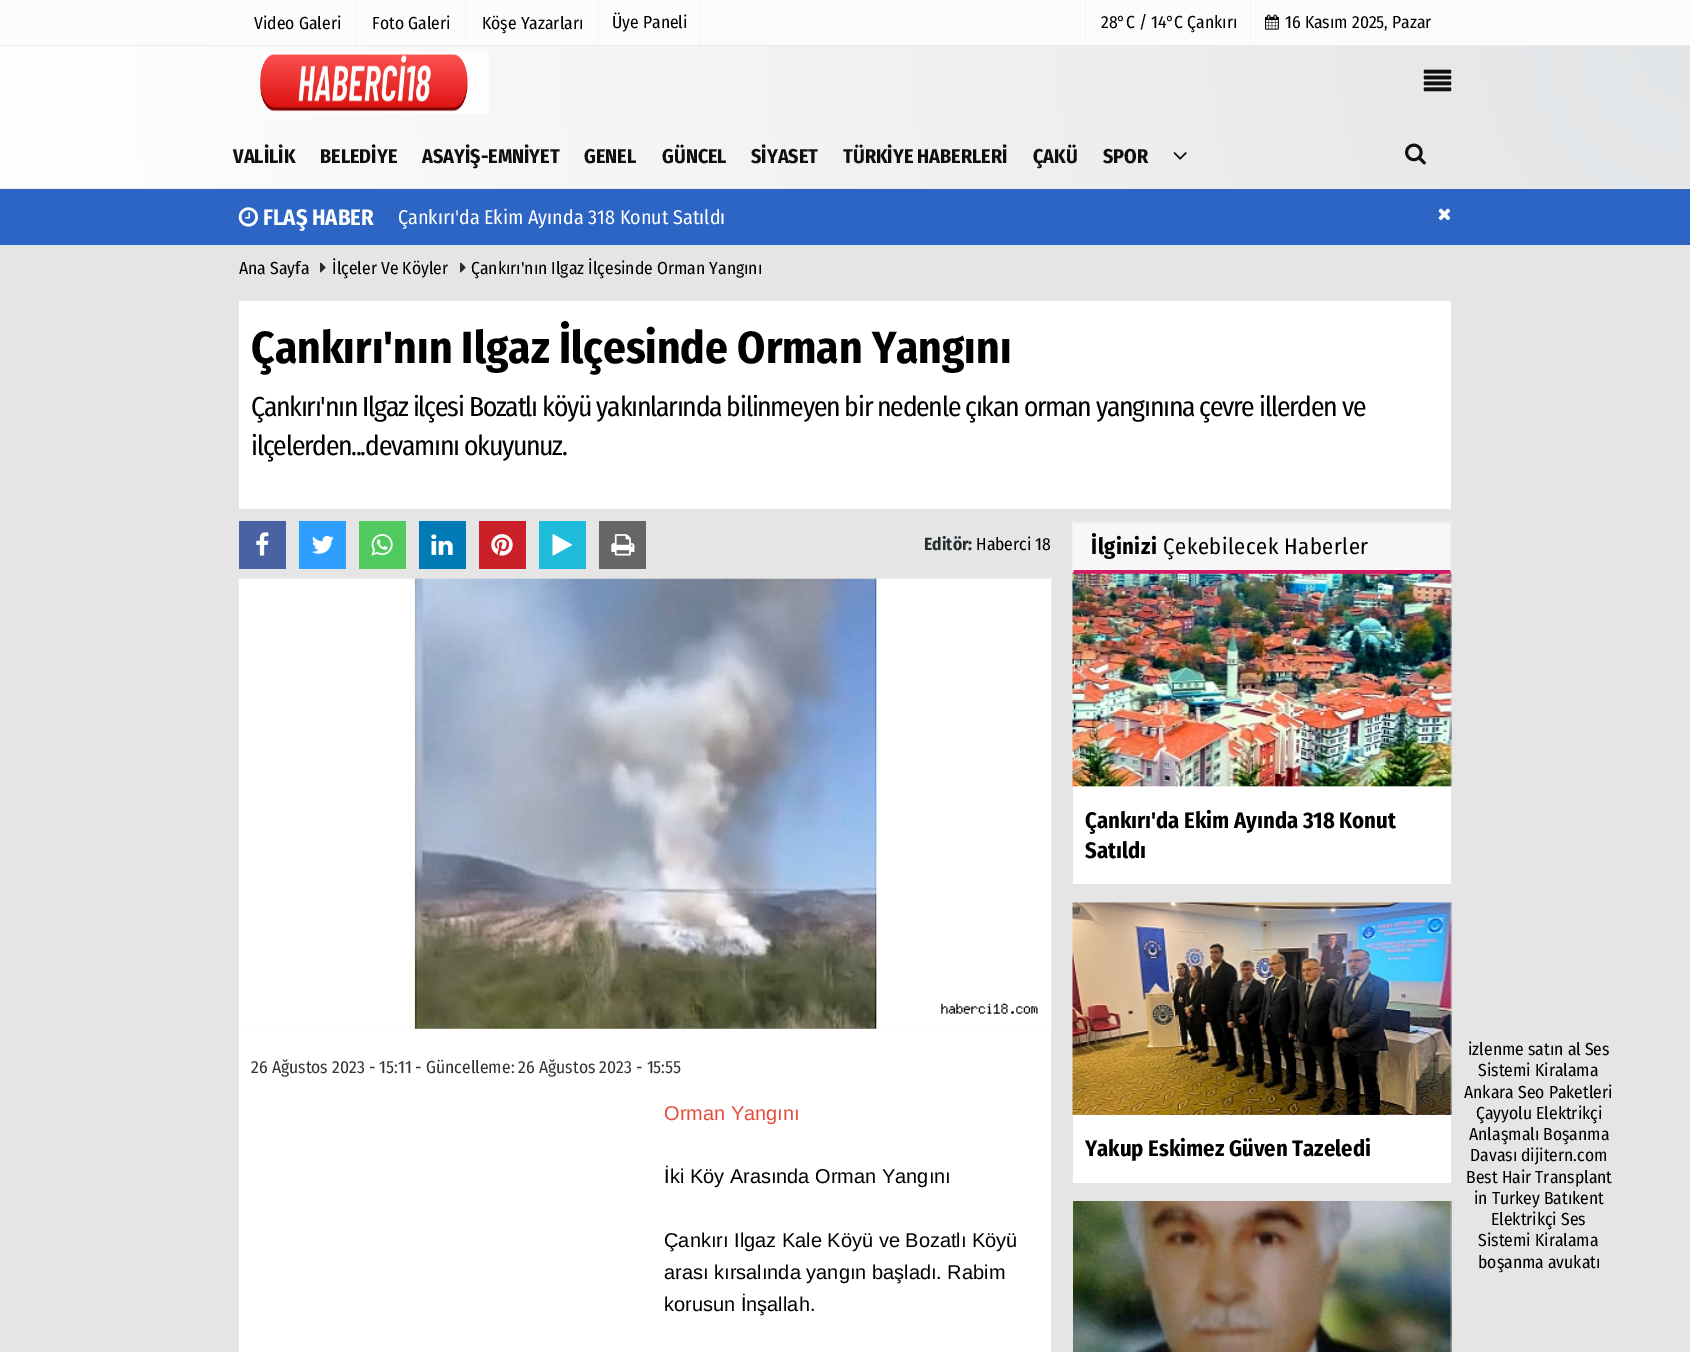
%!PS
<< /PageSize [1690 1352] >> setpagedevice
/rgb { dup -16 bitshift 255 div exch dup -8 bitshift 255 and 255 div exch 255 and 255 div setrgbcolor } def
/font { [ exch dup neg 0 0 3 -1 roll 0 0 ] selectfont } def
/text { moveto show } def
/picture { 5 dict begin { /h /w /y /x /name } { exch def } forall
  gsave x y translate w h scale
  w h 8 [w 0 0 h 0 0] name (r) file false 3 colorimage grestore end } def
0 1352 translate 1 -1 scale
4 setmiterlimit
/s1 { /FiraSansCondensed-Regular 17.5 font 16#000000 rgb } def
/s2 { /FiraSansCondensed-Bold 20 font 16#0F0F0F rgb } def
/s3 { /FiraSansCondensed-Bold 22.5 font 16#FFFFFF rgb } def
/s4 { /FiraSansCondensed-Regular 20 font 16#FFFFFF rgb } def
/s5 { /FiraSansCondensed-Bold 45 font 16#000000 rgb } def
/s6 { /FiraSansCondensed-Bold 17.5 font 16#252D31 rgb } def
/s7 { /FiraSansCondensed-Regular 17.5 font 16#333333 rgb } def
/s8 { /LiberationSans-Regular 20 font 16#E74C3C rgb } def
/s9 { /LiberationSans-Regular 20 font 16#000000 rgb } def
/s10 { /FiraSansCondensed-Bold 22.5 font 16#000000 rgb } def
16#E5E5E5 rgb
0 0 1690 1352 rectfill
16#FCFCFC rgb
0 0 1690 45 rectfill
16#F4F4F4 rgb
598 1 1 44 rectfill
465 1 1 44 rectfill
356 1 1 44 rectfill
s1
(Video Galeri) 254 29 text
(Foto Galeri) 372 29 text
(Köşe Yazarları) 482 29 text
16#F4F4F4 rgb
700 0 1 45 rectfill
s1
(Üye Paneli) 612 28 text
16#F4F4F4 rgb
1250 1 1 44 rectfill
1085 1 1 44 rectfill
s1
(28°C / 14°C Çankırı) 1101 28 text
(pic1.raw) 1265 14 14 16 picture
(16 Kasım 2025, Pazar) 1285 28 text
gsave 0 46 moveto 1690 46 lineto 1690 188 lineto 0 188 lineto closepath clip newpath 1690 46 translate 1696 1696 scale
<< /ShadingType 3 /ColorSpace /DeviceRGB /Coords [0 0 0 0 0 1] /Extend [true true] /Function << /FunctionType 2 /Domain [0 1] /C0 [0.886 0.898 0.906] /C1 [1 1 1] /N 1 >> >> shfill grestore
16#EBEBEB rgb
0 45 1690 1 rectfill
0 188 1690 1 rectfill
(pic2.raw) 260 51 229 63 picture
(pic3.raw) 1423 69 29 23 picture
s2
(VALİLİK) 233 163 text
(BELEDİYE) 320 163 text
(ASAYİŞ-EMNİYET) 422 163 text
(GENEL) 584 163 text
(GÜNCEL) 662 163 text
(SİYASET) 751 163 text
(TÜRKİYE HABERLERİ) 843 163 text
(ÇAKÜ) 1033 163 text
(SPOR) 1103 163 text
(pic4.raw) 1173 152 14 8 picture
(pic5.raw) 1405 143 21 22 picture
16#2D65C4 rgb
0 189 1690 56 rectfill
(pic6.raw) 238 207 20 20 picture
s3
(FLAŞ HABER) 263 225 text
s4
(Çankırı'da Ekim Ayında 318 Konut Satıldı) 398 224 text
(pic7.raw) 1438 208 13 13 picture
s1
(Ana Sayfa) 239 274 text
(pic8.raw) 320 262 6 11 picture
(İlçeler Ve Köyler) 332 274 text
(pic8.raw) 460 262 6 11 picture
(Çankırı'nın Ilgaz İlçesinde Orman Yangını) 471 274 text
16#FFFFFF rgb
239 301 1212 208 rectfill
s5
(Çankırı'nın Ilgaz İlçesinde Orman Yangını) 251 363 text
/FiraSansCondensed-Regular 27.5 font
251 416 moveto -1.25 0 (Çankırı'nın Ilgaz ilçesi Bozatlı köyü yakınlarında bilinmeyen bir nedenle çıkan orman yangınına çevre illerden ve) ashow
251 455 moveto -1.25 0 (ilçelerden...devamını okuyunuz.) ashow
16#4862A3 rgb
239 521 47 48 rectfill
(pic9.raw) 256 532 13 24 picture
16#2E9FFF rgb
299 521 47 48 rectfill
(pic10.raw) 312 535 22 19 picture
16#50CA5E rgb
359 521 47 48 rectfill
(pic11.raw) 371 534 22 22 picture
16#007BB6 rgb
419 521 47 48 rectfill
(pic12.raw) 431 534 22 21 picture
16#CB2027 rgb
479 521 47 48 rectfill
(pic13.raw) 491 534 22 22 picture
16#1EBBDA rgb
539 521 47 48 rectfill
(pic14.raw) 552 534 21 22 picture
16#666666 rgb
599 521 47 48 rectfill
(pic15.raw) 611 534 24 22 picture
s6
(Editör:) 924 550 text
s1
(Haberci 18) 976 550 text
(pic16.raw) 238 578 814 451 picture
16#FFFFFF rgb
239 1029 812 323 rectfill
s7
(26 Ağustos 2023 - 15:11 - Güncelleme: 26 Ağustos 2023 - 15:55) 251 1073 text
s8
(Orman Yangını) 664 1120 text
s9
(İki Köy Arasında Orman Yangını) 664 1183 text
(Çankırı Ilgaz Kale Köyü ve Bozatlı Köyü) 664 1247 text
(arası kırsalında yangın başladı. Rabim) 664 1279 text
(korusun İnşallah.) 664 1311 text
16#F7F7F7 rgb
1074 523 376 47 rectfill
16#F2F2F2 rgb
1073 521 378 1 rectfill
1451 521 moveto 1451 574 lineto 1450 570 lineto 1450 522 lineto closepath fill
16#D41B65 rgb
1451 574 moveto 1072 574 lineto 1074 570 lineto 1450 570 lineto closepath fill
16#F2F2F2 rgb
1072 574 moveto 1072 521 lineto 1074 522 lineto 1074 570 lineto closepath fill
/FiraSansCondensed-Bold 22.5 font
16#000000 rgb
1091 554 moveto 0.5 0 (İlginizi) ashow
/FiraSansCondensed-Regular 22.5 font
1163 554 moveto 0.5 0 (Çekebilecek Haberler) ashow
16#FFFFFF rgb
1073 574 378 310 rectfill
(pic17.raw) 1072 573 380 214 picture
s10
(Çankırı'da Ekim Ayında 318 Konut) 1085 828 text
(Satıldı) 1085 858 text
16#FFFFFF rgb
1073 903 378 280 rectfill
(pic18.raw) 1072 902 380 213 picture
s10
(Yakup Eskimez Güven Tazeledi) 1085 1156 text
(pic19.raw) 1073 1201 379 151 picture
s1
(izlenme satın al Ses) 1468 1055 text
(Sistemi Kiralama) 1478 1076 text
(Ankara Seo Paketleri) 1464 1098 text
(Çayyolu Elektrikçi) 1476 1119 text
(Anlaşmalı Boşanma) 1469 1140 text
(Davası dijitern.com) 1470 1161 text
(Best Hair Transplant) 1466 1183 text
(in Turkey Batıkent) 1474 1204 text
(Elektrikçi Ses) 1491 1225 text
(Sistemi Kiralama) 1478 1246 text
(boşanma avukatı) 1478 1268 text
showpage
